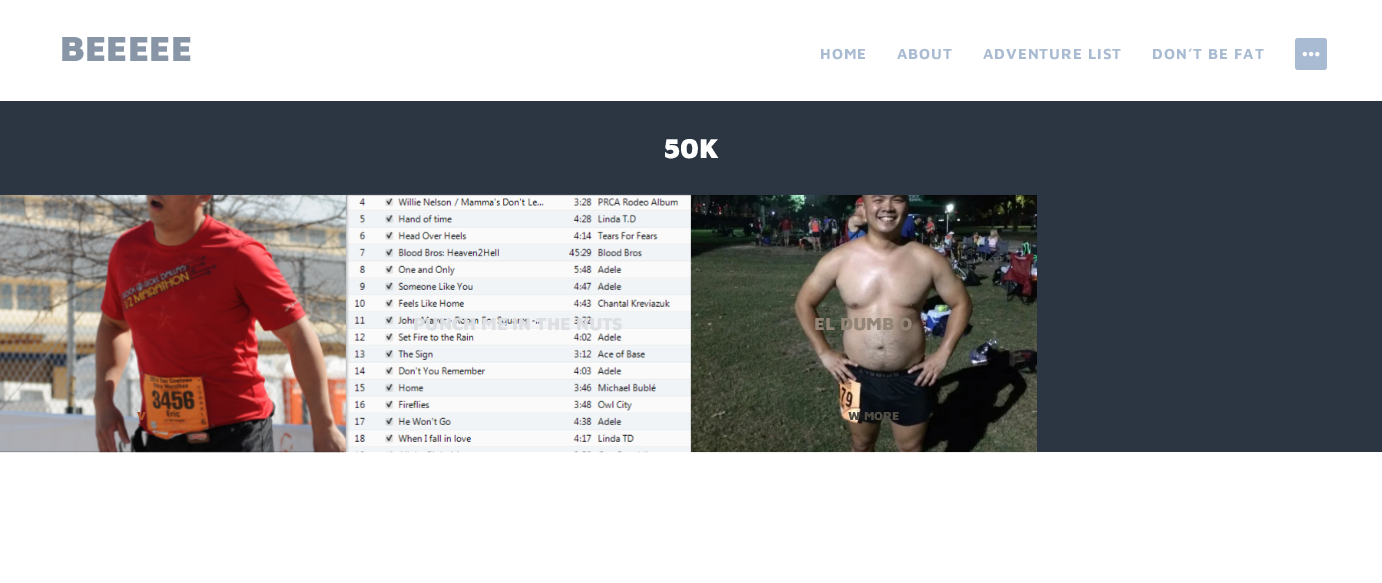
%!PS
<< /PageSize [1382 583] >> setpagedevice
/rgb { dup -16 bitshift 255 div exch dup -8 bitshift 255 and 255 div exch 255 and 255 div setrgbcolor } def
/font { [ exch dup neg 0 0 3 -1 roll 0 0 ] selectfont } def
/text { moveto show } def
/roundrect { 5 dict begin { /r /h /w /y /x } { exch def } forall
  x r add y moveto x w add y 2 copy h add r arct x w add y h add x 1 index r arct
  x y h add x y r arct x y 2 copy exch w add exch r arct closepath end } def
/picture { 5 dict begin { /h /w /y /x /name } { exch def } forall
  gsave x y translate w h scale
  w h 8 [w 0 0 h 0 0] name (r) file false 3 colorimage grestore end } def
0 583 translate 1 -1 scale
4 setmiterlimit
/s1 { /MavenPro-Black 36 font 16#8795A7 rgb } def
/s2 { /MavenPro-Black 28 font 16#FFFFFF rgb } def
/s3 { /MavenPro-Black 12 font 16#AA5229 rgb } def
/s4 { /MavenPro-Black 18 font 16#DDDFE2 rgb } def
/s5 { /MavenPro-Black 18 font 16#928476 rgb } def
/s6 { /MavenPro-Black 12 font 16#504C43 rgb } def
16#FFFFFF rgb
0 0 1382 583 rectfill
s1
(BEEEEE) 60 61 text
/MavenPro-Bold 15 font
16#A9BBD2 rgb
820 59 moveto 1 0 (HOME) ashow
897 59 moveto 1 0 (ABOUT) ashow
983 59 moveto 1 0 (ADVENTURE LIST) ashow
1152 59 moveto 1 0 (DON’T BE FAT) ashow
1295 38 32 32 3 roundrect fill
(pic1.raw) 1302 51 18 6 picture
16#2C3642 rgb
0 101 1382 351 rectfill
s2
(50K) 663 158 text
(pic2.raw) 0 194 346 259 picture
s3
(V) 137 420 text
(pic3.raw) 345 194 346 259 picture
s4
(PUNCH ME IN THE NUTS) 413 330 text
(pic4.raw) 691 194 346 259 picture
s5
(EL DUMB O) 814 330 text
s6
(W MORE) 848 420 text
showpage
